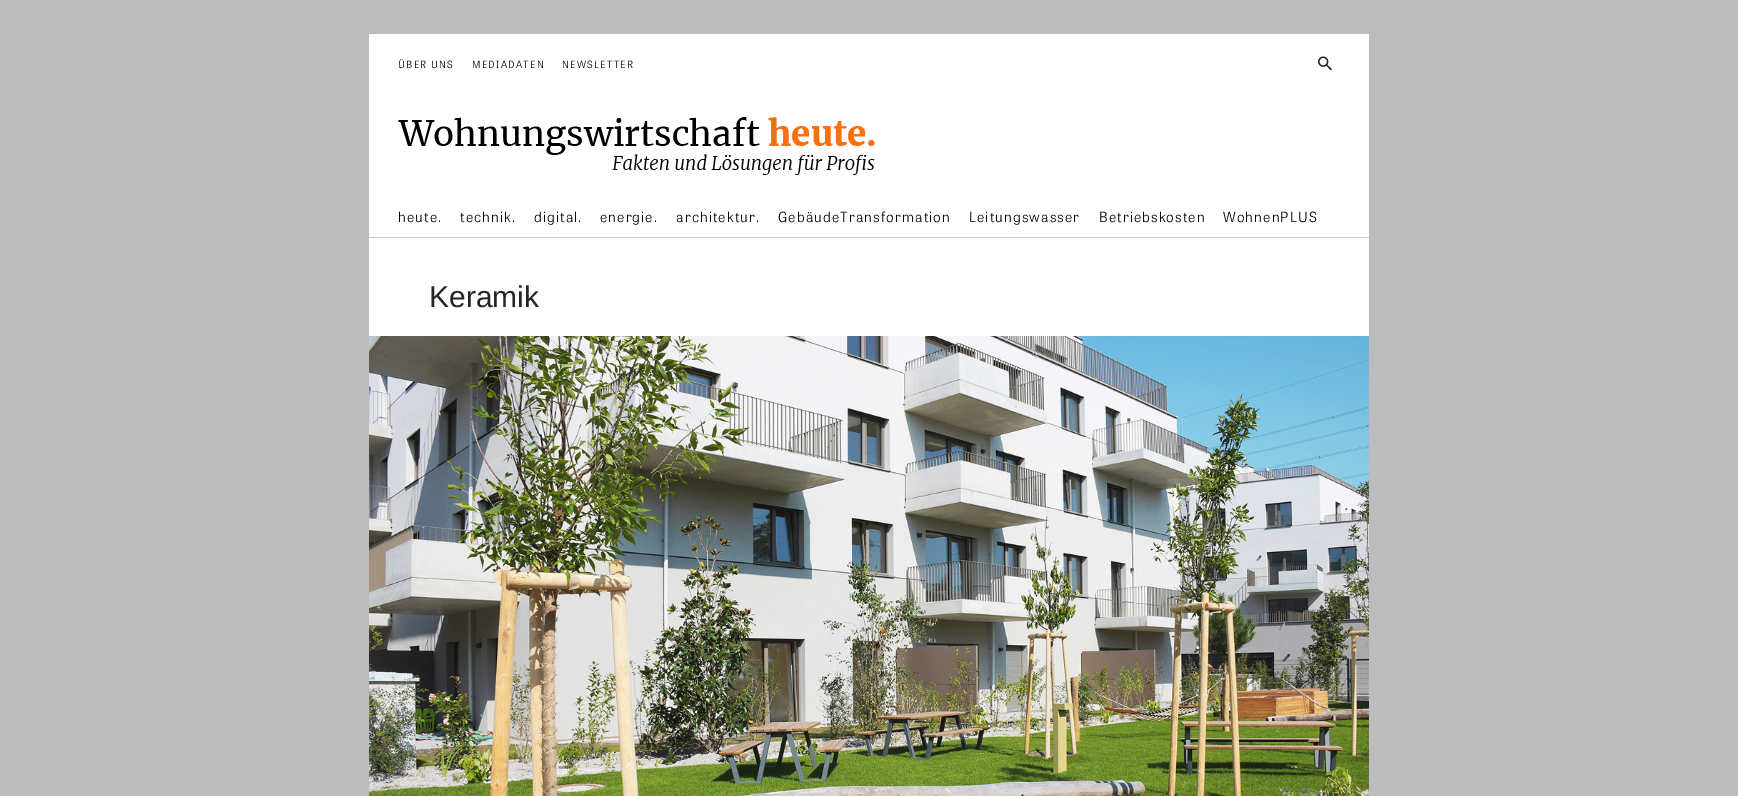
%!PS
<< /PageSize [1738 796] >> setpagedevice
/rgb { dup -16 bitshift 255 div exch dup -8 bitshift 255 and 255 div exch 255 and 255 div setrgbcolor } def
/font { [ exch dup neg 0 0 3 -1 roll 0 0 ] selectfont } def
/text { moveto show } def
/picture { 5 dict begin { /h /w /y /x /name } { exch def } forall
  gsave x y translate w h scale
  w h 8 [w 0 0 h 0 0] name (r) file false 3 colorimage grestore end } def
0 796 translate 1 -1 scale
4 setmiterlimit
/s1 { /LiberationSans-Regular 30 font 16#252525 rgb } def
16#BCBCBC rgb
0 0 1738 796 rectfill
16#FFFFFF rgb
369 34 1000 203 rectfill
/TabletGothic-Light 10 font
16#000000 rgb
398 68 moveto 1.25 0 (ÜBER UNS) ashow
472 68 moveto 1.25 0 (MEDIADATEN) ashow
562 68 moveto 1.25 0 (NEWSLETTER) ashow
(pic1.raw) 1318 56 14 15 picture
(pic2.raw) 398 117 477 58 picture
16#CCCCCC rgb
369 237 1000 1 rectfill
/TabletGothic-Light 14 font
16#000000 rgb
398 222 moveto 1.1 0 (heute.) ashow
460 222 moveto 1.1 0 (technik.) ashow
534 222 moveto 1.1 0 (digital.) ashow
600 222 moveto 1.1 0 (energie.) ashow
676 222 moveto 1.1 0 (architektur.) ashow
778 222 moveto 1.1 0 (GebäudeTransformation) ashow
969 222 moveto 1.1 0 (Leitungswasser) ashow
1099 222 moveto 1.1 0 (Betriebskosten) ashow
1223 222 moveto 1.1 0 (WohnenPLUS) ashow
16#FFFFFF rgb
369 238 1000 98 rectfill
s1
(Keramik) 429 307 text
(pic3.raw) 369 336 1000 460 picture
showpage
